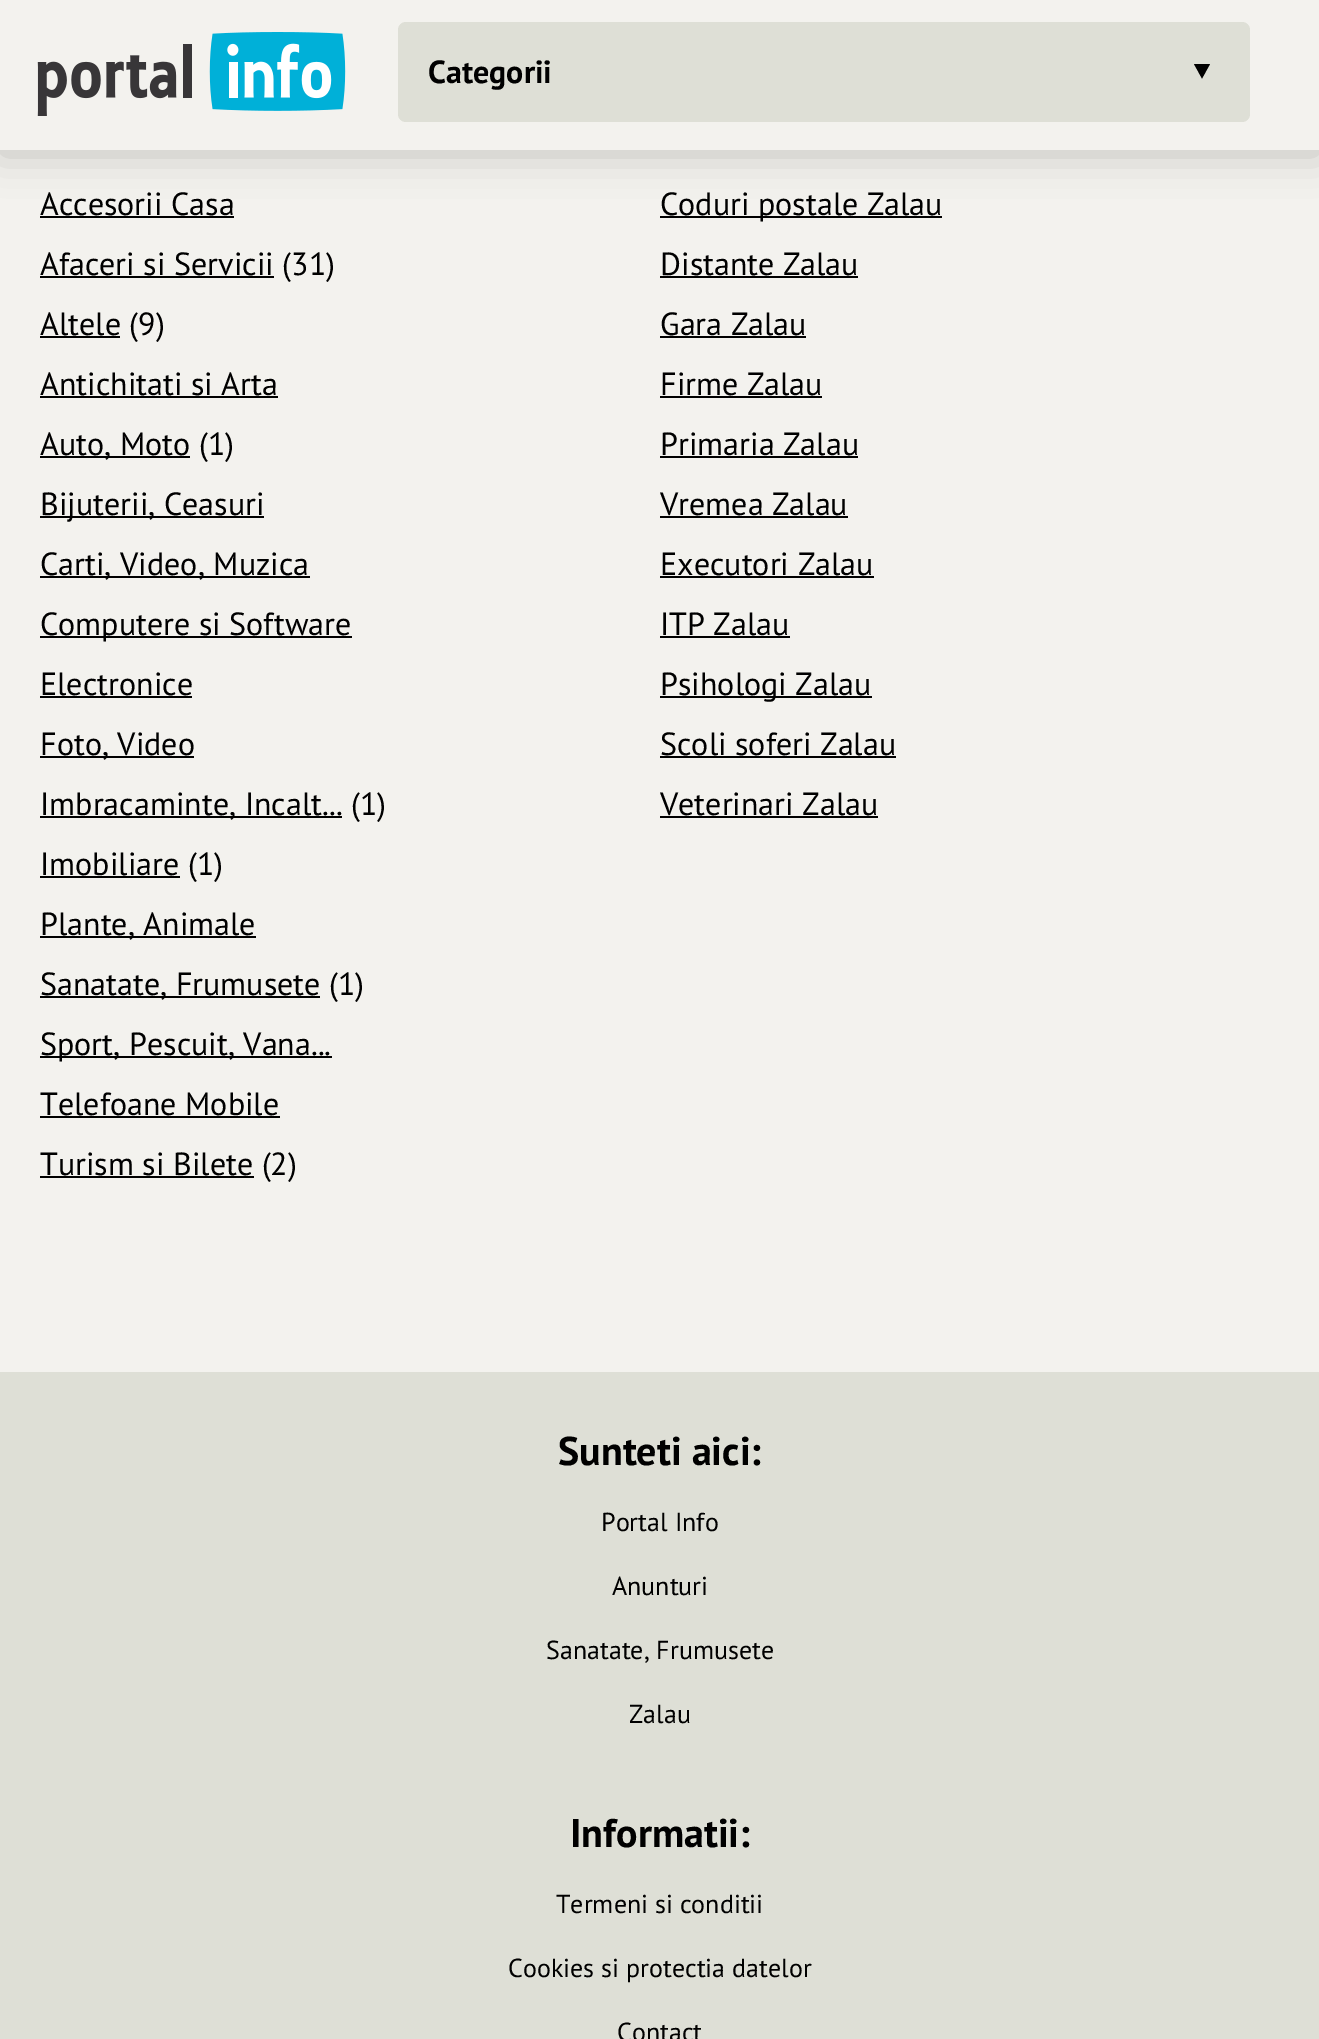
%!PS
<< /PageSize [1319 2039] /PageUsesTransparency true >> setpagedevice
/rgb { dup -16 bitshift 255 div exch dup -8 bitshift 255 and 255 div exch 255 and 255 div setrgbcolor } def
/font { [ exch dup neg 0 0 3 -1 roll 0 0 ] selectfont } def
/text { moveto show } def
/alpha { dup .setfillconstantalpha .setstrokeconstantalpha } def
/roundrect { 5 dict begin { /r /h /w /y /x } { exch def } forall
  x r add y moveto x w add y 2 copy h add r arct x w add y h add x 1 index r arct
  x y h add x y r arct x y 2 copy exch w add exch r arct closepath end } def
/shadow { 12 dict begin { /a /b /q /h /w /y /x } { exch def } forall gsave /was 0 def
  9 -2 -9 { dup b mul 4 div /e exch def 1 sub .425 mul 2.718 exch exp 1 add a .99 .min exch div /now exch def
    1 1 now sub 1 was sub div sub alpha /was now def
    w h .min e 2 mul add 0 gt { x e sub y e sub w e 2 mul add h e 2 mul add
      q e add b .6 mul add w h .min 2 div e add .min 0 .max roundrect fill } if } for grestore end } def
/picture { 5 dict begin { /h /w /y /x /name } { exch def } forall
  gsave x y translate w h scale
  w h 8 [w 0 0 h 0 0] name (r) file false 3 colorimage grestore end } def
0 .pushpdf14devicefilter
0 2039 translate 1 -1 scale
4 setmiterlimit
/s1 { /PTSans-Bold 32 font 16#000000 rgb } def
/s2 { /PTSans-Regular 32 font 16#000000 rgb } def
/s3 { /PTSans-Bold 40 font 16#000000 rgb } def
/s4 { /PTSans-Regular 26 font 16#000000 rgb } def
16#F3F2EE rgb
0 0 1319 2039 rectfill
16#000000 rgb
0 4 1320 150 0 20 0.2 shadow
16#F3F2EE rgb
0 0 1319 150 rectfill
(pic1.raw) 37 32 309 84 picture
16#DEDFD6 rgb
398 22 852 100 8 roundrect fill
16#000000 rgb
1194 64 moveto 1210 64 lineto 1202 78.5 lineto closepath fill
s1
(Categorii) 428 83 text
s2
(Accesorii Casa) 40 215 text
40 216 194 2 rectfill
40 276 234 2 rectfill
(Afaceri si Servicii \(31\)) 40 275 text
40 336 80 2 rectfill
(Altele \(9\)) 40 335 text
(Antichitati si Arta) 40 395 text
40 396 238 2 rectfill
40 456 150 2 rectfill
(Auto, Moto \(1\)) 40 455 text
40 516 224 2 rectfill
(Bijuterii, Ceasuri) 40 515 text
40 576 270 2 rectfill
(Carti, Video, Muzica) 40 575 text
40 636 312 2 rectfill
(Computere si Software) 40 635 text
(Electronice) 40 695 text
40 696 152 2 rectfill
40 756 154 2 rectfill
(Foto, Video) 40 755 text
40 816 302 2 rectfill
(Imbracaminte, Incalt... \(1\)) 40 815 text
40 876 140 2 rectfill
(Imobiliare \(1\)) 40 875 text
40 936 216 2 rectfill
(Plante, Animale) 40 935 text
40 996 280 2 rectfill
(Sanatate, Frumusete \(1\)) 40 995 text
40 1056 292 2 rectfill
(Sport, Pescuit, Vana...) 40 1055 text
(Telefoane Mobile) 40 1115 text
40 1116 240 2 rectfill
40 1176 214 2 rectfill
(Turism si Bilete \(2\)) 40 1175 text
660 216 282 2 rectfill
(Coduri postale Zalau) 660 215 text
(Distante Zalau) 660 275 text
660 276 198 2 rectfill
(Gara Zalau) 660 335 text
660 336 146 2 rectfill
(Firme Zalau) 660 395 text
660 396 162 2 rectfill
(Primaria Zalau) 660 455 text
660 456 198 2 rectfill
(Vremea Zalau) 660 515 text
660 516 188 2 rectfill
(Executori Zalau) 660 575 text
660 576 214 2 rectfill
(ITP Zalau) 660 635 text
660 636 130 2 rectfill
660 696 212 2 rectfill
(Psihologi Zalau) 660 695 text
(Scoli soferi Zalau) 660 755 text
660 756 236 2 rectfill
(Veterinari Zalau) 660 815 text
660 816 218 2 rectfill
16#DEDFD6 rgb
0 1372 1319 667 rectfill
s3
(Sunteti aici:) 558 1465 text
s4
(Portal Info) 601 1531 text
(Anunturi) 612 1595 text
(Sanatate, Frumusete) 546 1659 text
(Zalau) 629 1723 text
s3
(Informatii:) 570 1847 text
s4
(Termeni si conditii) 556 1913 text
(Cookies si protectia datelor) 508 1977 text
(Contact) 617 2041 text
.poppdf14devicefilter showpage
